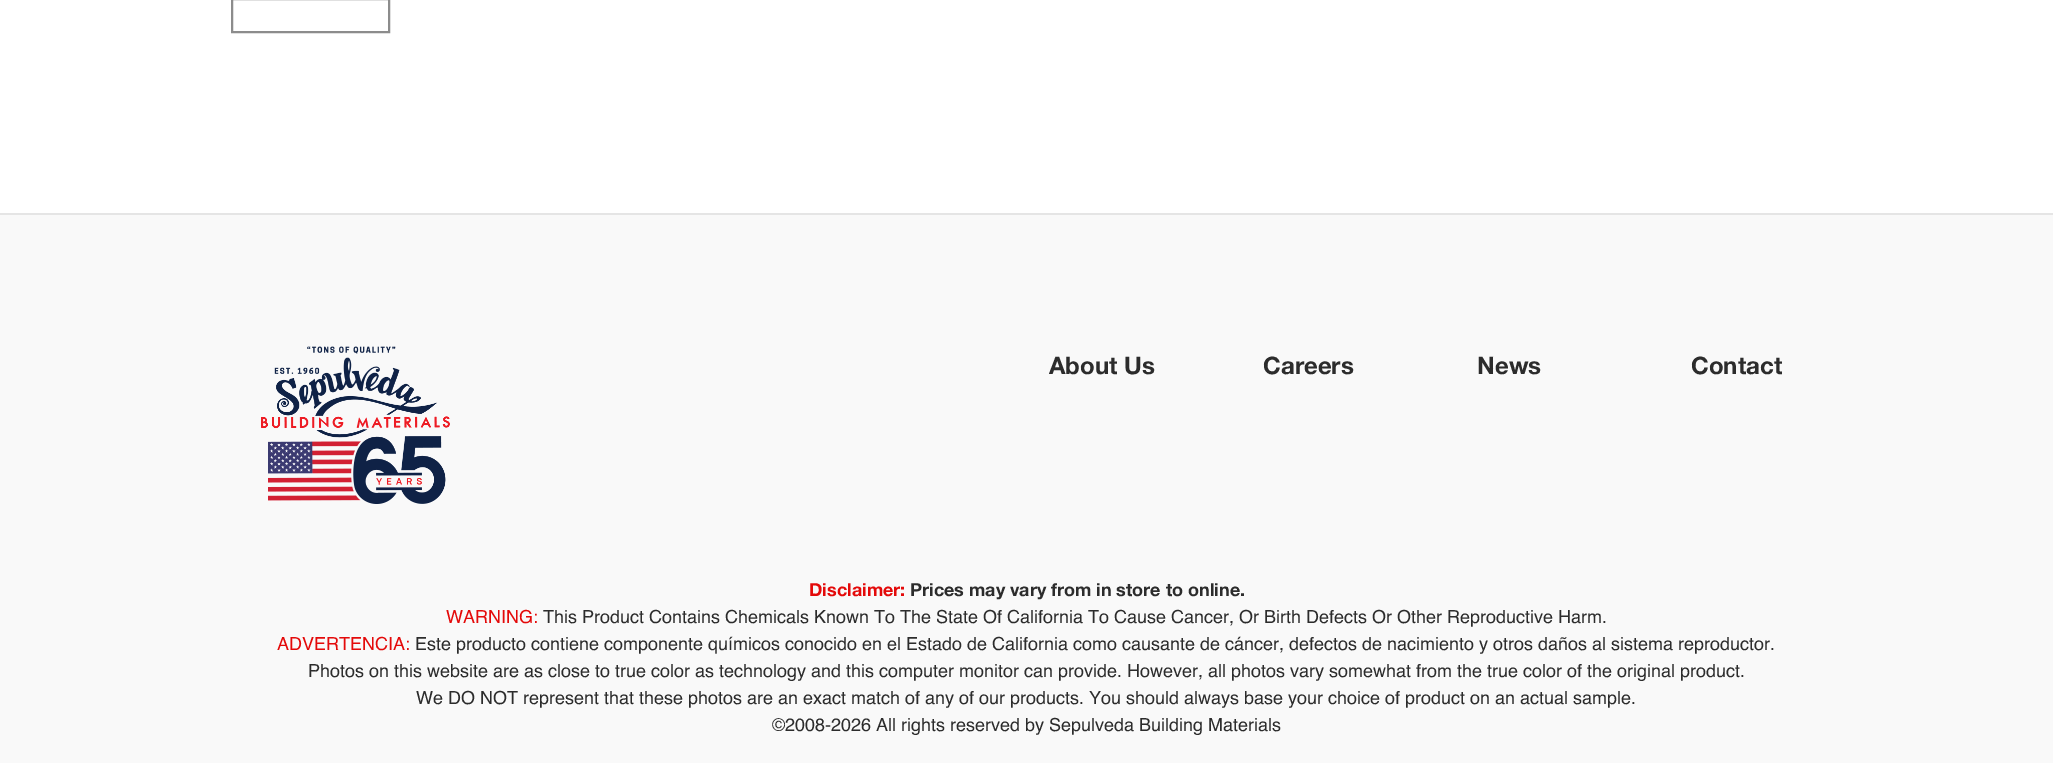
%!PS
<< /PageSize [2053 763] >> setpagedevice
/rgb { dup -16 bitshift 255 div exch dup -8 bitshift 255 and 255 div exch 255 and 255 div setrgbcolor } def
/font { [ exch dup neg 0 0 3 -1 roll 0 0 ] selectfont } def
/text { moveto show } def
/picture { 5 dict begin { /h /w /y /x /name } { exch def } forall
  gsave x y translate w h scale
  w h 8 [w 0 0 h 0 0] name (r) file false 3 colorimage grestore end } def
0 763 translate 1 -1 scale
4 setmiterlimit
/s1 { /HelveticaNeue-Bold 24 font 16#2C2C2C rgb } def
/s2 { /HelveticaNeue-Bold 18 font 16#E40A0A rgb } def
/s3 { /HelveticaNeue-Bold 18 font 16#2C2C2C rgb } def
/s4 { /Helvetica-Regular 18 font 16#E40A0A rgb } def
/s5 { /Helvetica-Regular 18 font 16#2C2C2C rgb } def
16#FFFFFF rgb
0 0 2053 763 rectfill
16#8C8C8C rgb
2 setlinewidth
232 -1 157 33 rectstroke
16#F9F9F9 rgb
0 215 2053 548 rectfill
16#E5E5E5 rgb
0 213 2053 2 rectfill
(pic1.raw) 261 346 189 158 picture
s1
(About Us) 1049 374 text
(Careers) 1263 374 text
(News) 1477 374 text
(Contact) 1691 374 text
s2
(Disclaimer:) 809 596 text
s3
(Prices may vary from in store to online.) 910 596 text
s4
(WARNING:) 446 623 text
s5
(This Product Contains Chemicals Known To The State Of California To Cause Cancer, Or Birth Defects Or Other Reproductive Harm.) 543 623 text
s4
(ADVERTENCIA:) 277 650 text
s5
(Este producto contiene componente químicos conocido en el Estado de California como causante de cáncer, defectos de nacimiento y otros daños al sistema reproductor.) 415 650 text
(Photos on this website are as close to true color as technology and this computer monitor can provide. However, all photos vary somewhat from the true color of the original product.) 308 677 text
(We DO NOT represent that these photos are an exact match of any of our products. You should always base your choice of product on an actual sample.) 416 704 text
(©2008-2026 All rights reserved by Sepulveda Building Materials) 772 731 text
showpage
